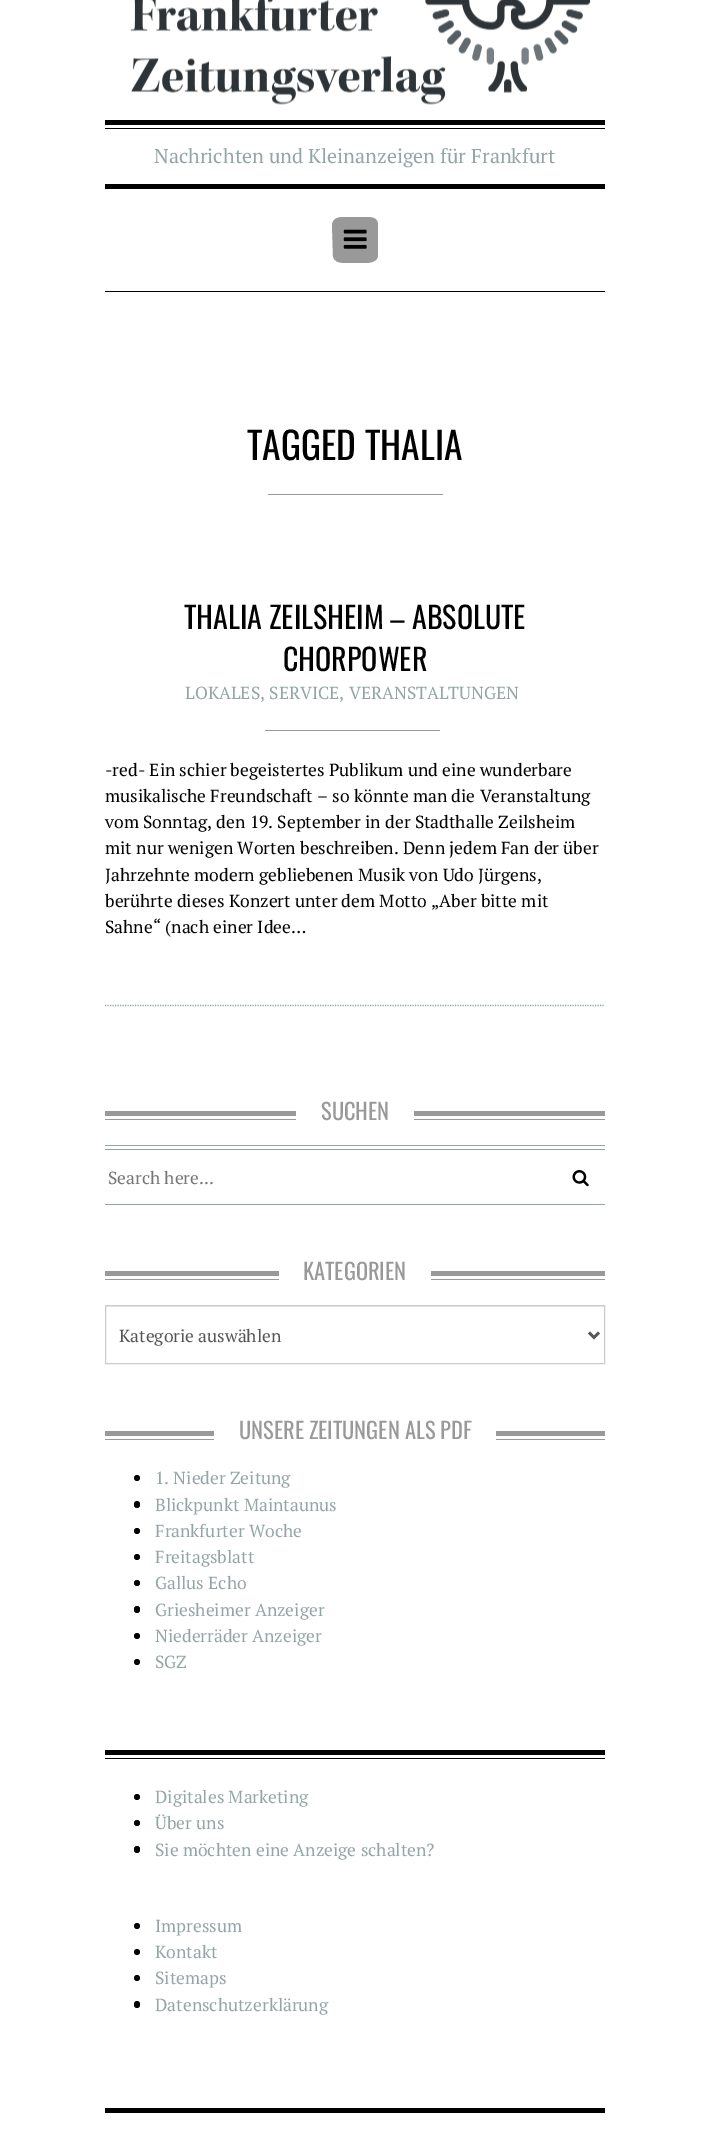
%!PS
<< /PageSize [710 2134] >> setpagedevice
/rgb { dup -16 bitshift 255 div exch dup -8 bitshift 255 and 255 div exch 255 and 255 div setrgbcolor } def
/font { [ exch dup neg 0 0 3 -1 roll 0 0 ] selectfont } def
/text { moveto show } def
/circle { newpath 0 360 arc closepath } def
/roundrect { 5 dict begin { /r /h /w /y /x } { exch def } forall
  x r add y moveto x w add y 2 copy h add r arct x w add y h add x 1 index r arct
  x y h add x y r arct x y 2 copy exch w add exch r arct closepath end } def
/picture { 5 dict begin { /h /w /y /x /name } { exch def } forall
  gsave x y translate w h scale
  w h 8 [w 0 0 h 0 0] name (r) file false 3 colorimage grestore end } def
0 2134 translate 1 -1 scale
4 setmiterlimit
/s1 { /PTSerif-Regular 20 font 16#95A5A6 rgb } def
/s2 { /Oswald-Regular 37.5 font 16#000000 rgb } def
/s3 { /Oswald-Regular 30 font 16#000000 rgb } def
/s4 { /PTSerif-Regular 17.5 font 16#95A5A6 rgb } def
/s5 { /PTSerif-Regular 17.5 font 16#000000 rgb } def
/s6 { /Oswald-Regular 22.5 font 16#999999 rgb } def
/s7 { /PTSerif-Regular 17.5 font 16#757575 rgb } def
/s8 { /PTSerif-Regular 17.5 font 16#555555 rgb } def
16#FFFFFF rgb
0 0 710 2134 rectfill
16#000000 rgb
105 184 500 5 rectfill
105 120 500 5 rectfill
(pic1.raw) 130 0 461 105 picture
105 128 500 1 rectfill
s1
(Nachrichten und Kleinanzeigen für Frankfurt) 154 163 text
16#000000 rgb
105 291 500 1 rectfill
16#999999 rgb
378 225 moveto 378 256 lineto 377 262 370 263 365 263 curveto 346 263 lineto 340 263 334 262 333 256 curveto 332 225 lineto 333 217 340 217 346 217 curveto 365 217 lineto 371 217 378 217 378 225 curveto closepath fill
(pic2.raw) 343 229 24 20 picture
16#000000 rgb
105 1750 500 5 rectfill
s2
(TAGGED THALIA) 247 460 text
16#999999 rgb
268 494 175 1 rectfill
16#95A5A6 rgb
1.2 setlinewidth
[1.25 1.25] 0 setdash
105 1005.5 moveto 605 1005.5 lineto stroke
s3
(THALIA ZEILSHEIM – ABSOLUTE) 184 629 text
(CHORPOWER) 283 671 text
s4
(LOKALES, SERVICE, VERANSTALTUNGEN) 185 699 text
16#999999 rgb
265 730 175 1 rectfill
s5
(-red- Ein schier begeistertes Publikum und eine wunderbare) 105 776 text
(musikalische Freundschaft – so könnte man die Veranstaltung) 105 802 text
(vom Sonntag, den 19. September in der Stadthalle Zeilsheim) 105 828 text
(mit nur wenigen Worten beschreiben. Denn jedem Fan der über) 105 854 text
(Jahrzehnte modern gebliebenen Musik von Udo Jürgens,) 105 881 text
(berührte dieses Konzert unter dem Motto „Aber bitte mit) 105 907 text
(Sahne“ \(nach einer Idee…) 105 933 text
16#999999 rgb
105 1111 500 5 rectfill
105 1119 500 1 rectfill
16#FFFFFF rgb
296 1111 118 9 rectfill
s6
(SUCHEN) 321 1120 text
16#95A5A6 rgb
105 1145 500 1 rectfill
105 1149 500 1 rectfill
105 1204 500 1 rectfill
s7
(Search here...) 108 1184 text
(pic3.raw) 572 1170 17 17 picture
16#999999 rgb
105 1271 500 5 rectfill
105 1279 500 1 rectfill
16#FFFFFF rgb
279 1271 152 9 rectfill
s6
(KATEGORIEN) 303 1280 text
16#ECECEC rgb
106 1306 498 1 rectfill
16#CCCCCC rgb
1 setlinewidth
[] 0 setdash
105.5 1305.5 499 58 rectstroke
16#555555 rgb
2.5 setlinewidth
589 1332.5 moveto 594 1337.5 lineto 599 1332.5 lineto stroke
s8
(Kategorie auswählen) 119 1342 text
16#999999 rgb
105 1431 500 5 rectfill
105 1439 500 1 rectfill
16#FFFFFF rgb
214 1431 282 9 rectfill
s6
(UNSERE ZEITUNGEN ALS PDF) 239 1439 text
16#000000 rgb
137 1478 3 circle fill
s4
(1. Nieder Zeitung) 155 1484 text
16#000000 rgb
134 1501 6 7 3 roundrect fill
s4
(Blickpunkt Maintaunus) 155 1511 text
16#000000 rgb
137 1531 3 circle fill
s4
(Frankfurter Woche) 155 1537 text
16#000000 rgb
137 1557 3 circle fill
s4
(Freitagsblatt) 155 1563 text
16#000000 rgb
137 1583 3 circle fill
s4
(Gallus Echo) 155 1589 text
16#000000 rgb
134 1606 6 7 3 roundrect fill
s4
(Griesheimer Anzeiger) 155 1616 text
16#000000 rgb
137 1636 3 circle fill
s4
(Niederräder Anzeiger) 155 1642 text
16#000000 rgb
137 1662 3 circle fill
s4
(SGZ) 155 1668 text
16#000000 rgb
105 1758 500 1 rectfill
105 2108 500 5 rectfill
137 1797 3 circle fill
s4
(Digitales Marketing) 155 1803 text
16#000000 rgb
137 1823 3 circle fill
s4
(Über uns) 155 1829 text
16#000000 rgb
134 1846 6 7 3 roundrect fill
s4
(Sie möchten eine Anzeige schalten?) 155 1856 text
16#000000 rgb
137 1926 3 circle fill
s4
(Impressum) 155 1932 text
16#000000 rgb
137 1952 3 circle fill
s4
(Kontakt) 155 1958 text
16#000000 rgb
137 1978 3 circle fill
s4
(Sitemaps) 155 1984 text
16#000000 rgb
134 2001 6 7 3 roundrect fill
s4
(Datenschutzerklärung) 155 2011 text
showpage
